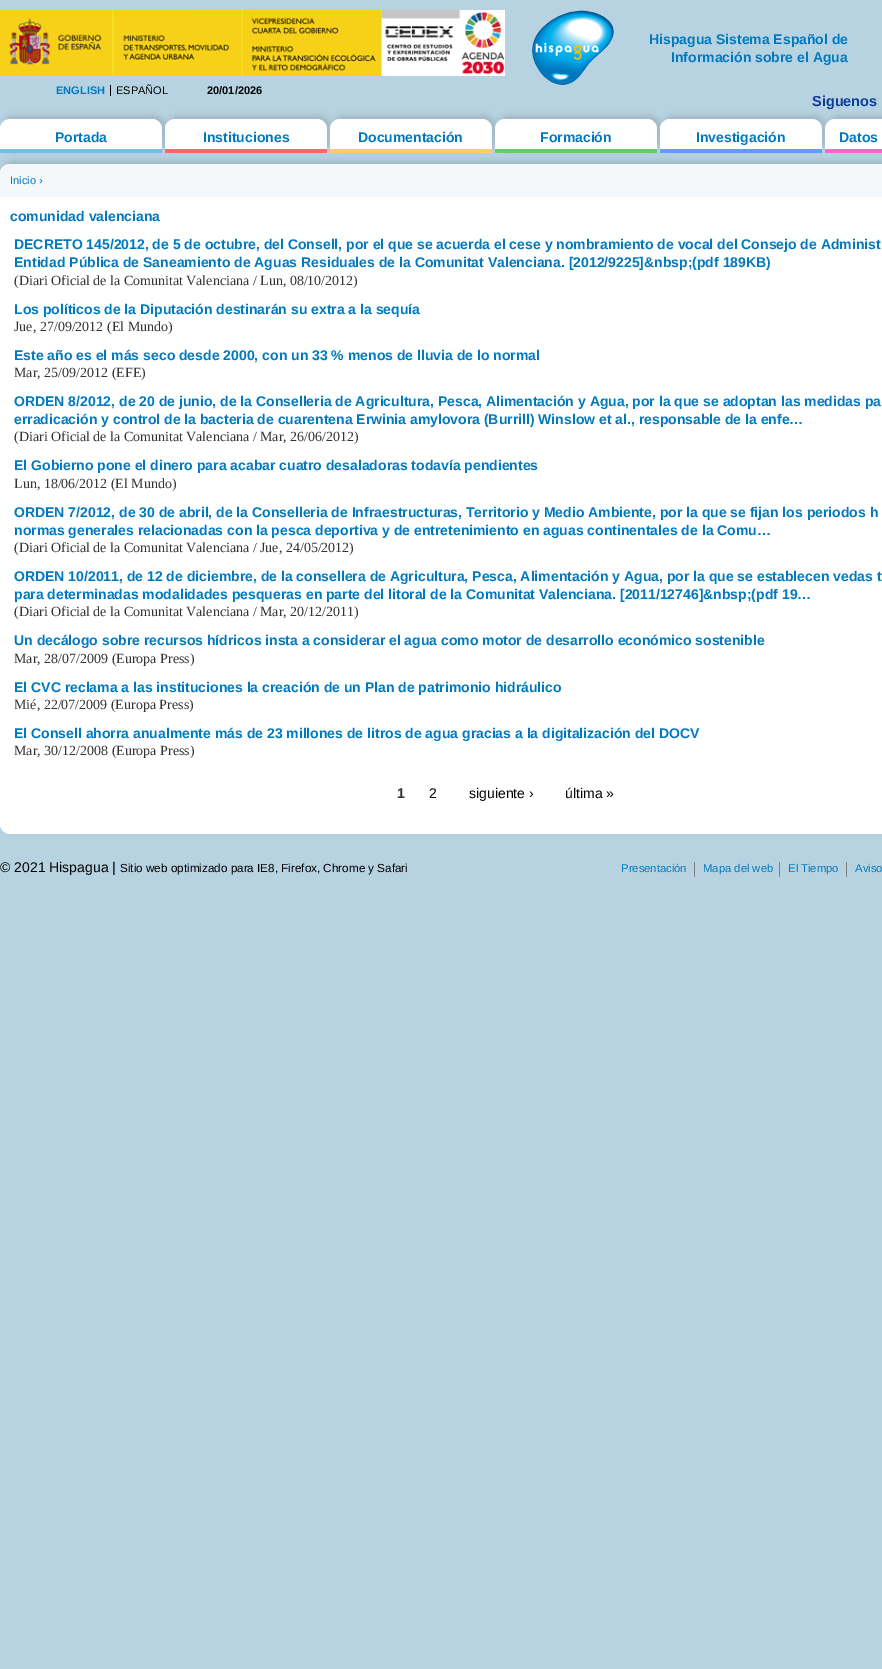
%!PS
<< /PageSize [882 1669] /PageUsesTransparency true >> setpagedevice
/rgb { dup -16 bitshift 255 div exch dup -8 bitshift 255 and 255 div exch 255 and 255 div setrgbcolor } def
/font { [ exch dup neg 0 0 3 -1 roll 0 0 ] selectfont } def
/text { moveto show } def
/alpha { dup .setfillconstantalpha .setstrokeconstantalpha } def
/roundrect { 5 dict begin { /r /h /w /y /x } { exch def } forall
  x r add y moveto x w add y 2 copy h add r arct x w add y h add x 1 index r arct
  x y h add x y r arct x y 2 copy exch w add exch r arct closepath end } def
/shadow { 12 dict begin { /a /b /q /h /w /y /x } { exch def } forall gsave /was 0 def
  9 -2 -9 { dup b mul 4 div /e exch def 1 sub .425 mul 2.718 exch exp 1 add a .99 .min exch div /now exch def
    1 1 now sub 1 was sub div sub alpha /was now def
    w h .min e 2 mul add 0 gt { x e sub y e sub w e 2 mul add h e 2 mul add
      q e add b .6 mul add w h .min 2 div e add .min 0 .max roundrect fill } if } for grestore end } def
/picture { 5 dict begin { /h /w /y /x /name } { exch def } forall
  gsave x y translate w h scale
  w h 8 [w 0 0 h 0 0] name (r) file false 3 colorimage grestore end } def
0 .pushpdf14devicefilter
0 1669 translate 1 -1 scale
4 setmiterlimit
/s1 { /LiberationSans-Bold 14 font 16#0079BE rgb } def
/s2 { /LiberationSans-Bold 11 font 16#0079BE rgb } def
/s3 { /LiberationSans-Regular 11 font 16#000000 rgb } def
/s4 { /LiberationSans-Bold 11 font 16#000000 rgb } def
/s5 { /LiberationSans-Bold 14.5 font 16#0D3E95 rgb } def
/s6 { /LiberationSans-Regular 11 font 16#0079BE rgb } def
/s7 { /LiberationSerif-Regular 14 font 16#333333 rgb } def
/s8 { /LiberationSans-Bold 14 font 16#333333 rgb } def
/s9 { /LiberationSans-Regular 14 font 16#000000 rgb } def
/s10 { /LiberationSans-Regular 11.7 font 16#000000 rgb } def
/s11 { /LiberationSans-Regular 11.25 font 16#0079BE rgb } def
16#B7D3E1 rgb
0 0 882 1669 rectfill
(pic1.raw) 0 10 505 66 picture
(pic2.raw) 532 10 82 75 picture
s1
(Hispagua Sistema Español de) 649 44 text
(Información sobre el Agua) 671 62 text
16#000000 rgb
110 85 1 11 rectfill
s2
(ENGLISH) 56 94 text
s3
(ESPAÑOL) 116 94 text
s4
(20/01/2026) 207 94 text
s5
(Siguenos) 812 106 text
16#9CB3BF rgb
3 116 162 34 10 3.5 1 shadow
3 161 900 670 10 3.5 1 shadow
16#FFFFFF rgb
10 119 moveto 152 119 lineto 157.5 119 162 123.5 162 129 curveto 162 153 lineto 0 153 lineto 0 129 lineto 0 123.5 4.5 119 10 119 curveto closepath fill
16#72BCEB rgb
0 149 162 4 rectfill
s1
(Portada) 55 142 text
16#9CB3BF rgb
168 116 162 34 10 3.5 1 shadow
16#FFFFFF rgb
175 119 moveto 317 119 lineto 322.5 119 327 123.5 327 129 curveto 327 153 lineto 165 153 lineto 165 129 lineto 165 123.5 169.5 119 175 119 curveto closepath fill
16#FF6766 rgb
165 149 162 4 rectfill
s1
(Instituciones) 203 142 text
16#9CB3BF rgb
333 116 162 34 10 3.5 1 shadow
16#FFFFFF rgb
340 119 moveto 482 119 lineto 487.5 119 492 123.5 492 129 curveto 492 153 lineto 330 153 lineto 330 129 lineto 330 123.5 334.5 119 340 119 curveto closepath fill
16#FFCC67 rgb
330 149 162 4 rectfill
s1
(Documentación) 358 142 text
16#9CB3BF rgb
498 116 162 34 10 3.5 1 shadow
16#FFFFFF rgb
505 119 moveto 647 119 lineto 652.5 119 657 123.5 657 129 curveto 657 153 lineto 495 153 lineto 495 129 lineto 495 123.5 499.5 119 505 119 curveto closepath fill
16#66CC66 rgb
495 149 162 4 rectfill
s1
(Formación) 540 142 text
16#9CB3BF rgb
663 116 162 34 10 3.5 1 shadow
16#FFFFFF rgb
670 119 moveto 812 119 lineto 817.5 119 822 123.5 822 129 curveto 822 153 lineto 660 153 lineto 660 129 lineto 660 123.5 664.5 119 670 119 curveto closepath fill
16#6599FE rgb
660 149 162 4 rectfill
s1
(Investigación) 696 142 text
16#9CB3BF rgb
828 116 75 34 10 3.5 1 shadow
16#FFFFFF rgb
835 119 moveto 882 119 lineto 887.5 119 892 123.5 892 129 curveto 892 153 lineto 825 153 lineto 825 129 lineto 825 123.5 829.5 119 835 119 curveto closepath fill
16#FE66CB rgb
825 149 57 4 rectfill
s1
(Datos) 839 142 text
16#FFFFFF rgb
0 164 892 670 10 roundrect fill
16#F4F8FB rgb
10 164 moveto 882 164 lineto 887.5 164 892 168.5 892 174 curveto 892 197 lineto 0 197 lineto 0 174 lineto 0 168.5 4.5 164 10 164 curveto closepath fill
s6
(Inicio ›) 10 184 text
s1
(comunidad valenciana) 10 221 text
(DECRETO 145/2012, de 5 de octubre, del Consell, por el que se acuerda el cese y nombramiento de vocal del Consejo de Administ) 14 249 text
(Entidad Pública de Saneamiento de Aguas Residuales de la Comunitat Valenciana. [2012/9225]&nbsp;\(pdf 189KB\)) 14 267 text
s7
(\(Diari Oficial de la Comunitat Valenciana / Lun, 08/10/2012\)) 14 285 text
s1
(Los políticos de la Diputación destinarán su extra a la sequía) 14 314 text
s7
(Jue, 27/09/2012 \(El Mundo\)) 14 331 text
s1
(Este año es el más seco desde 2000, con un 33 % menos de lluvia de lo normal) 14 360 text
s7
(Mar, 25/09/2012 \(EFE\)) 14 377 text
s1
(ORDEN 8/2012, de 20 de junio, de la Conselleria de Agricultura, Pesca, Alimentación y Agua, por la que se adoptan las medidas pa) 14 406 text
(erradicación y control de la bacteria de cuarentena Erwinia amylovora \(Burrill\) Winslow et al., responsable de la enfe…) 14 424 text
s7
(\(Diari Oficial de la Comunitat Valenciana / Mar, 26/06/2012\)) 14 441 text
s1
(El Gobierno pone el dinero para acabar cuatro desaladoras todavía pendientes) 14 470 text
s7
(Lun, 18/06/2012 \(El Mundo\)) 14 488 text
s1
(ORDEN 7/2012, de 30 de abril, de la Conselleria de Infraestructuras, Territorio y Medio Ambiente, por la que se fijan los periodos h) 14 517 text
(normas generales relacionadas con la pesca deportiva y de entretenimiento en aguas continentales de la Comu…) 14 535 text
s7
(\(Diari Oficial de la Comunitat Valenciana / Jue, 24/05/2012\)) 14 552 text
s1
(ORDEN 10/2011, de 12 de diciembre, de la consellera de Agricultura, Pesca, Alimentación y Agua, por la que se establecen vedas t) 14 581 text
(para determinadas modalidades pesqueras en parte del litoral de la Comunitat Valenciana. [2011/12746]&nbsp;\(pdf 19…) 14 599 text
s7
(\(Diari Oficial de la Comunitat Valenciana / Mar, 20/12/2011\)) 14 616 text
s1
(Un decálogo sobre recursos hídricos insta a considerar el agua como motor de desarrollo económico sostenible) 14 645 text
s7
(Mar, 28/07/2009 \(Europa Press\)) 14 663 text
s1
(El CVC reclama a las instituciones la creación de un Plan de patrimonio hidráulico) 14 692 text
s7
(Mié, 22/07/2009 \(Europa Press\)) 14 709 text
s1
(El Consell ahorra anualmente más de 23 millones de litros de agua gracias a la digitalización del DOCV) 14 738 text
s7
(Mar, 30/12/2008 \(Europa Press\)) 14 755 text
s8
(1) 397 798 text
s9
(2) 429 798 text
(siguiente ›) 469 798 text
(última ») 565 798 text
(© 2021 Hispagua |) 0 872 text
s10
(Sitio web optimizado para IE8, Firefox, Chrome y Safari) 120 872 text
s11
(Presentación) 621 872 text
16#828177 rgb
694 862 1 15 rectfill
s11
(Mapa del web) 703 872 text
16#828177 rgb
779 862 1 15 rectfill
s11
(El Tiempo) 788 872 text
16#828177 rgb
846 862 1 15 rectfill
s11
(Aviso) 855 872 text
.poppdf14devicefilter showpage
